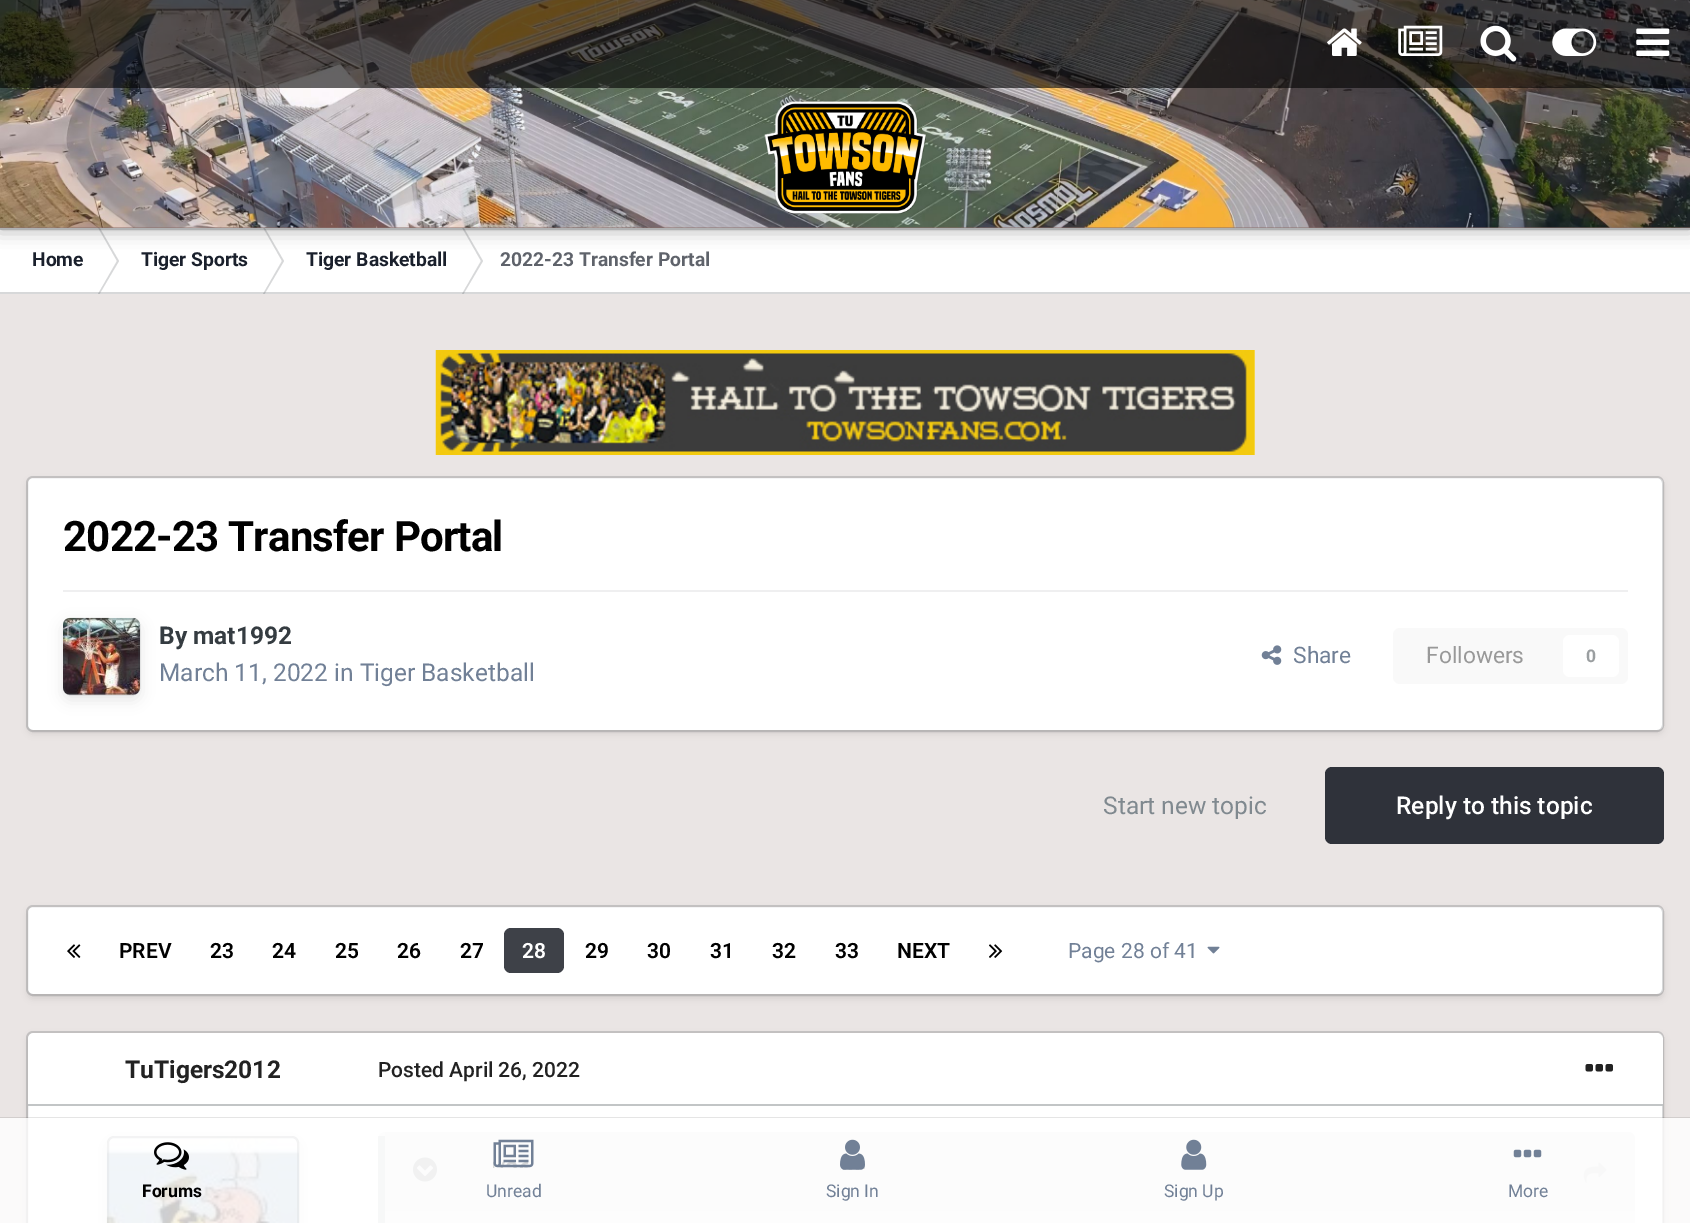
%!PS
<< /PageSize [1690 1223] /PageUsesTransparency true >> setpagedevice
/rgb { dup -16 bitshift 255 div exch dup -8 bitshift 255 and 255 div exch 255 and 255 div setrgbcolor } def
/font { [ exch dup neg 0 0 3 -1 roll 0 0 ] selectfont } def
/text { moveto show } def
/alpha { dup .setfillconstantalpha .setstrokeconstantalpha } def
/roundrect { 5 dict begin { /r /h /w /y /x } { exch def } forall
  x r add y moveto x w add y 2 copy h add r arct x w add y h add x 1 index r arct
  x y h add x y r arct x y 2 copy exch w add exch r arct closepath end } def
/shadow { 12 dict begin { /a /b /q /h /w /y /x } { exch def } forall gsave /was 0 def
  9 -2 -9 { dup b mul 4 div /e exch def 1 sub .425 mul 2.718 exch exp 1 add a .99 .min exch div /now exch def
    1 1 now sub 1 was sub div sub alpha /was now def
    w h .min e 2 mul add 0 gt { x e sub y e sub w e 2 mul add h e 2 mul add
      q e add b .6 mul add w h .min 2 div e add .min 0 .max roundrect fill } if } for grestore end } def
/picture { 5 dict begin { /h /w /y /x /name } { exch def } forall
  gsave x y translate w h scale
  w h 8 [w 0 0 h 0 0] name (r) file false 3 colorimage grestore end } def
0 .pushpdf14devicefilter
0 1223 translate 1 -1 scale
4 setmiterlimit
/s1 { /Roboto-Bold 19.25 font 16#1A202C rgb } def
/s2 { /Roboto-Bold 19.25 font 16#5F636B rgb } def
/s3 { /Roboto-Bold 24.5 font 16#353C41 rgb } def
/s4 { /Roboto-Regular 24.5 font 16#718096 rgb } def
/s5 { /Roboto-Regular 22.75 font 16#718096 rgb } def
/s6 { /Roboto-Regular 22.75 font 16#999999 rgb } def
/s7 { /Roboto-Bold 17.5 font 16#9A9EA0 rgb } def
/s8 { /Roboto-Regular 24.5 font 16#80898F rgb } def
/s9 { /Roboto-Medium 24.5 font 16#FFFFFF rgb } def
/s10 { /Roboto-SemiBold 21 font 16#000000 rgb } def
/s11 { /Roboto-SemiBold 21 font 16#FFFFFF rgb } def
/s12 { /Roboto-Regular 21 font 16#718096 rgb } def
/s13 { /Roboto-Bold 24.5 font 16#222222 rgb } def
/s14 { /Roboto-Medium 21 font 16#222222 rgb } def
/s15 { /Roboto-Bold 17.5 font 16#000000 rgb } def
/s16 { /Roboto-Regular 17.5 font 16#718096 rgb } def
16#EAE5E4 rgb
0 0 1690 1223 rectfill
16#FFFFFF rgb
0 228 1690 66 rectfill
16#D7D8D9 rgb
98 227.5 moveto 99.5 227.5 lineto 119 261 lineto 117 261 lineto closepath fill
263 227.5 moveto 264.5 227.5 lineto 284 261 lineto 282 261 lineto closepath fill
462 227.5 moveto 463.5 227.5 lineto 483 261 lineto 481 261 lineto closepath fill
0.2 alpha
16#353C41 rgb
0 228 1690 2 rectfill
1 alpha
16#000000 rgb
0 2 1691 227 0 9 0.35 shadow
16#8B6E6A rgb
0 227 1690 1 rectfill
(pic1.raw) 0 0 1690 228 picture
0.6 alpha
16#000000 rgb
0 0 1690 88 rectfill
1 alpha
(pic2.raw) 1327 28 35 28 picture
(pic3.raw) 1398 25 45 31 picture
(pic4.raw) 1480 25 37 37 picture
(pic5.raw) 1552 28 45 28 picture
(pic6.raw) 1636 28 34 28 picture
(pic7.raw) 764 101 162 113 picture
16#D7D8D9 rgb
98 294 moveto 99.5 294 lineto 119 261 lineto 117 261 lineto closepath fill
263 294 moveto 264.5 294 lineto 284 261 lineto 282 261 lineto closepath fill
462 294 moveto 463.5 294 lineto 483 261 lineto 481 261 lineto closepath fill
0.2 alpha
16#353C41 rgb
0 292 1690 2 rectfill
1 alpha
s1
(Home) 32 266 text
(Tiger Sports) 141 266 text
(Tiger Basketball) 306 266 text
s2
(2022-23 Transfer Portal) 500 266 text
(pic8.raw) 435 350 820 105 picture
16#000000 rgb
28 481 1635 252 5 3.5 0.1 shadow
16#FFFFFF rgb
28 478 1635 252 5 roundrect fill
0.2 alpha
16#353C41 rgb
2 setlinewidth
27 477 1636 254 6 roundrect stroke
/Roboto-Bold 42 font
1 alpha
16#000000 rgb
63 551 moveto -0.8 0 (2022-23 Transfer Portal) ashow
16#EFEFF0 rgb
63 590 1565 2 rectfill
(pic9.raw) 63 617 77 78 picture
gsave
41 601 moveto 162 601 lineto 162 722 lineto 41 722 lineto closepath 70 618 moveto 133 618 lineto 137 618 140 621 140 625 curveto 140 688 lineto 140 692 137 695 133 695 curveto 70 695 lineto 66 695 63 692 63 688 curveto 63 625 lineto 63 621 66 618 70 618 curveto closepath eoclip newpath
16#000000 rgb
63 623 77 77 7 7 0.1 shadow
grestore
0.3 alpha
16#353C41 rgb
64 619 75 75 6 roundrect stroke
1 alpha
s3
(By mat1992) 159 644 text
s4
(March 11, 2022 in Tiger Basketball) 159 681 text
(pic10.raw) 1261 645 21 20 picture
s5
(Share) 1293 663 text
16#F9F9F9 rgb
1393 628 235 56 7 roundrect fill
s6
(Followers) 1426 663 text
16#FFFFFF rgb
1563 635 56 42 7 roundrect fill
s7
(0) 1586 662 text
s8
(Start new topic) 1103 814 text
16#2F323A rgb
1325 767 339 77 7 roundrect fill
s9
(Reply to this topic) 1396 814 text
16#000000 rgb
28 910 1635 88 5 3.5 0.1 shadow
16#FFFFFF rgb
28 907 1635 87 5 roundrect fill
0.2 alpha
16#353C41 rgb
27 906 1636 89 6 roundrect stroke
1 alpha
(pic11.raw) 67 944 14 14 picture
s10
(PREV) 119 958 text
(23) 210 958 text
(24) 272 958 text
(25) 335 958 text
(26) 397 958 text
(27) 460 958 text
16#3E4148 rgb
504 928 60 45 7 roundrect fill
s11
(28) 522 958 text
s10
(29) 585 958 text
(30) 647 958 text
(31) 710 958 text
(32) 772 958 text
(33) 835 958 text
(NEXT) 897 958 text
(pic12.raw) 989 944 14 14 picture
s12
(Page 28 of 41) 1068 958 text
(pic13.raw) 1207 946 13 8 picture
16#000000 rgb
28 1036 1635 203 5 3.5 0.1 shadow
16#FFFFFF rgb
28 1033 1635 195 5 roundrect fill
0.2 alpha
16#353C41 rgb
27 1032 1636 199 6 roundrect stroke
1 alpha
16#FFFFFF rgb
35 1033 moveto 1656 1033 lineto 1660 1033 1663 1036 1663 1040 curveto 1663 1106 lineto 28 1106 lineto 28 1040 lineto 28 1036 31 1033 35 1033 curveto closepath fill
16#C2C5C6 rgb
28 1104 1635 2 rectfill
s13
(TuTigers2012) 125 1078 text
(pic14.raw) 106 1136 194 87 picture
gsave
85 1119 moveto 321 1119 lineto 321 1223 lineto 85 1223 lineto closepath 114 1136 moveto 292 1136 lineto 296 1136 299 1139 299 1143 curveto 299 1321 lineto 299 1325 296 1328 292 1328 curveto 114 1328 lineto 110 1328 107 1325 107 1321 curveto 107 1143 lineto 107 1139 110 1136 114 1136 curveto closepath eoclip newpath
16#000000 rgb
107 1141 192 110 7 7 0.1 shadow
grestore
0.3 alpha
16#353C41 rgb
108 1137 190 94 6 roundrect stroke
1 alpha
s14
(Posted April 26, 2022) 378 1077 text
(pic15.raw) 1585 1064 28 8 picture
16#F7F7F7 rgb
378 1132 1257 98 7 roundrect fill
0.15 alpha
16#2D3748 rgb
378 1136 7 87 rectfill
1 alpha
16#EEEFEF rgb
385 1132 moveto 1628 1132 lineto 1632 1132 1635 1135 1635 1139 curveto 1635 1211 lineto 385 1211 lineto closepath fill
(pic16.raw) 413 1157 24 25 picture
(pic17.raw) 1583 1162 24 21 picture
0.1 alpha
16#000000 rgb
0 1117 moveto 0 1118 lineto 1690 1118 lineto 1690 1222 lineto 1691 1222 lineto 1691 1117 lineto closepath fill
0.8 alpha
16#FFFFFF rgb
0 1118 1690 105 rectfill
1 alpha
(pic18.raw) 154 1142 35 28 picture
s15
(Forums) 142 1197 text
(pic19.raw) 493 1139 41 29 picture
s16
(Unread) 486 1197 text
(pic20.raw) 840 1139 25 31 picture
(Sign In) 826 1197 text
(pic21.raw) 1181 1139 26 31 picture
(Sign Up) 1164 1197 text
(pic22.raw) 1513 1149 29 9 picture
(More) 1508 1197 text
.poppdf14devicefilter showpage
